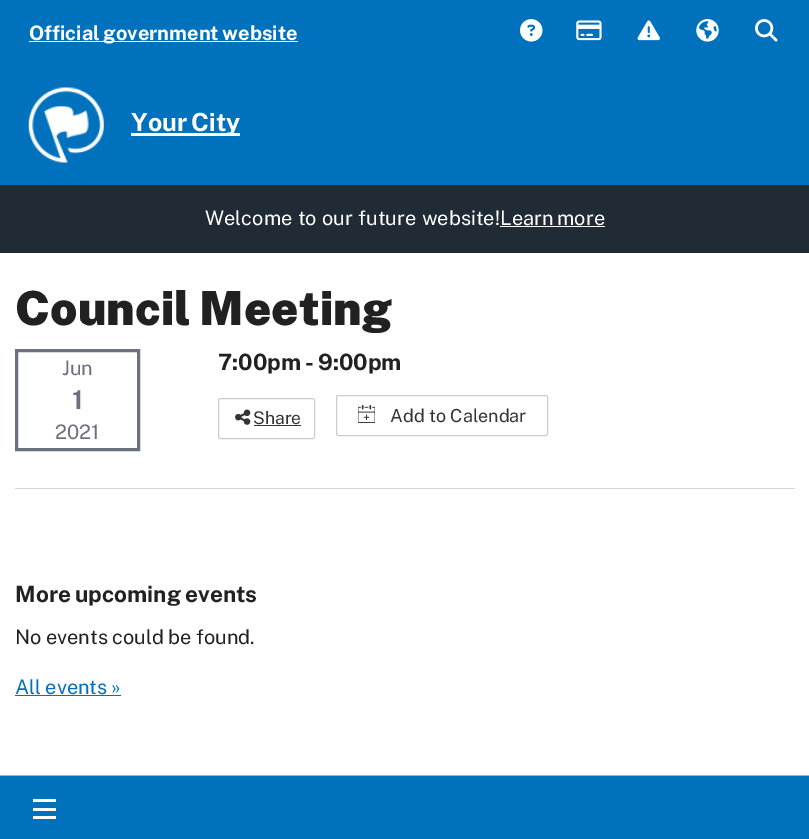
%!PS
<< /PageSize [809 839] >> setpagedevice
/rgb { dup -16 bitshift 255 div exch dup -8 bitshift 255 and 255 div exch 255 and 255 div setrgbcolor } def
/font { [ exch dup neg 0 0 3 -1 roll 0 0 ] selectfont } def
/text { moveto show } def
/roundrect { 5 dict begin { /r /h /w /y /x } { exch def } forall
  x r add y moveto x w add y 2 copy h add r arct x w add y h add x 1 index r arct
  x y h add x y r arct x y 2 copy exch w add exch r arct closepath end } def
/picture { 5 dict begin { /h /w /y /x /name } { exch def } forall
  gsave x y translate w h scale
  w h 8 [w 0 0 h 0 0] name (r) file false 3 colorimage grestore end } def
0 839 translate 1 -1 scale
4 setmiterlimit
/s1 { /PublicSans-Regular 20 font 16#6C717F rgb } def
/s2 { /PublicSans-Bold 26 font 16#6C717F rgb } def
/s3 { /PublicSans-Regular 17.5 font 16#333333 rgb } def
/s4 { /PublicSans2-Regular 18 font 16#333333 rgb } def
16#FFFFFF rgb
0 0 809 839 rectfill
16#0071BC rgb
0 0 809 185 rectfill
16#FFFFFF rgb
29 41 269 1 rectfill
/PublicSans-Bold 20 font
29 40 moveto -1 0 32 (Official government website) widthshow
(pic1.raw) 520 19 23 23 picture
(pic2.raw) 576 20 26 21 picture
(pic3.raw) 637 20 23 21 picture
(pic4.raw) 696 19 23 23 picture
(pic5.raw) 755 19 23 23 picture
(pic6.raw) 28 87 76 76 picture
131 133 109 3 rectfill
/PublicSans-Bold 25 font
131 131 moveto -2 0 32 (Your City) widthshow
16#0071BC rgb
0 776 809 63 rectfill
16#AEB0B5 rgb
0 775 809 1 rectfill
16#FFFFFF rgb
33 808 23 3 rectfill
33 799 23 3 rectfill
33 816 23 3 rectfill
16#212B35 rgb
0 185 809 68 rectfill
/PublicSans-Regular 20 font
16#FFFFFF rgb
205 225 moveto 0.5 0 32 (Welcome to our future website!) widthshow
500 225 moveto -1 0 32 (Learn more) widthshow
500 226 105 1 rectfill
/PublicSans-Black 47 font
16#212121 rgb
15 325 moveto -1 0 32 (Council Meeting) widthshow
16#6C717F rgb
3 setlinewidth
16.5 350.5 122 99 rectstroke
s1
(Jun) 62 375 text
s2
(1) 72 409 text
s1
(2021) 55 439 text
/PublicSans-Bold 22.5 font
16#212121 rgb
218 370 moveto -1 0 32 (7:00pm - 9:00pm) widthshow
16#CCCCCC rgb
1 setlinewidth
218.5 398.5 96 40 2 roundrect stroke
(pic7.raw) 235 409 16 16 picture
s3
(Share) 253 424 text
254 425 47 1 rectfill
16#CCCCCC rgb
336.5 395.5 211 40 2 roundrect stroke
(pic8.raw) 358 405 17 18 picture
s4
(Add to Calendar) 390 422 text
16#D6D7D9 rgb
15 488 780 1 rectfill
/PublicSans-Bold 22.5 font
16#212121 rgb
15 602 moveto -1 0 32 (More upcoming events) widthshow
/PublicSans-Regular 20 font
15 644 moveto -0.5 0 32 (No events could be found.) widthshow
16#0071BC rgb
15 694 moveto -1 0 32 (All events ») widthshow
15 695 106 1 rectfill
showpage
